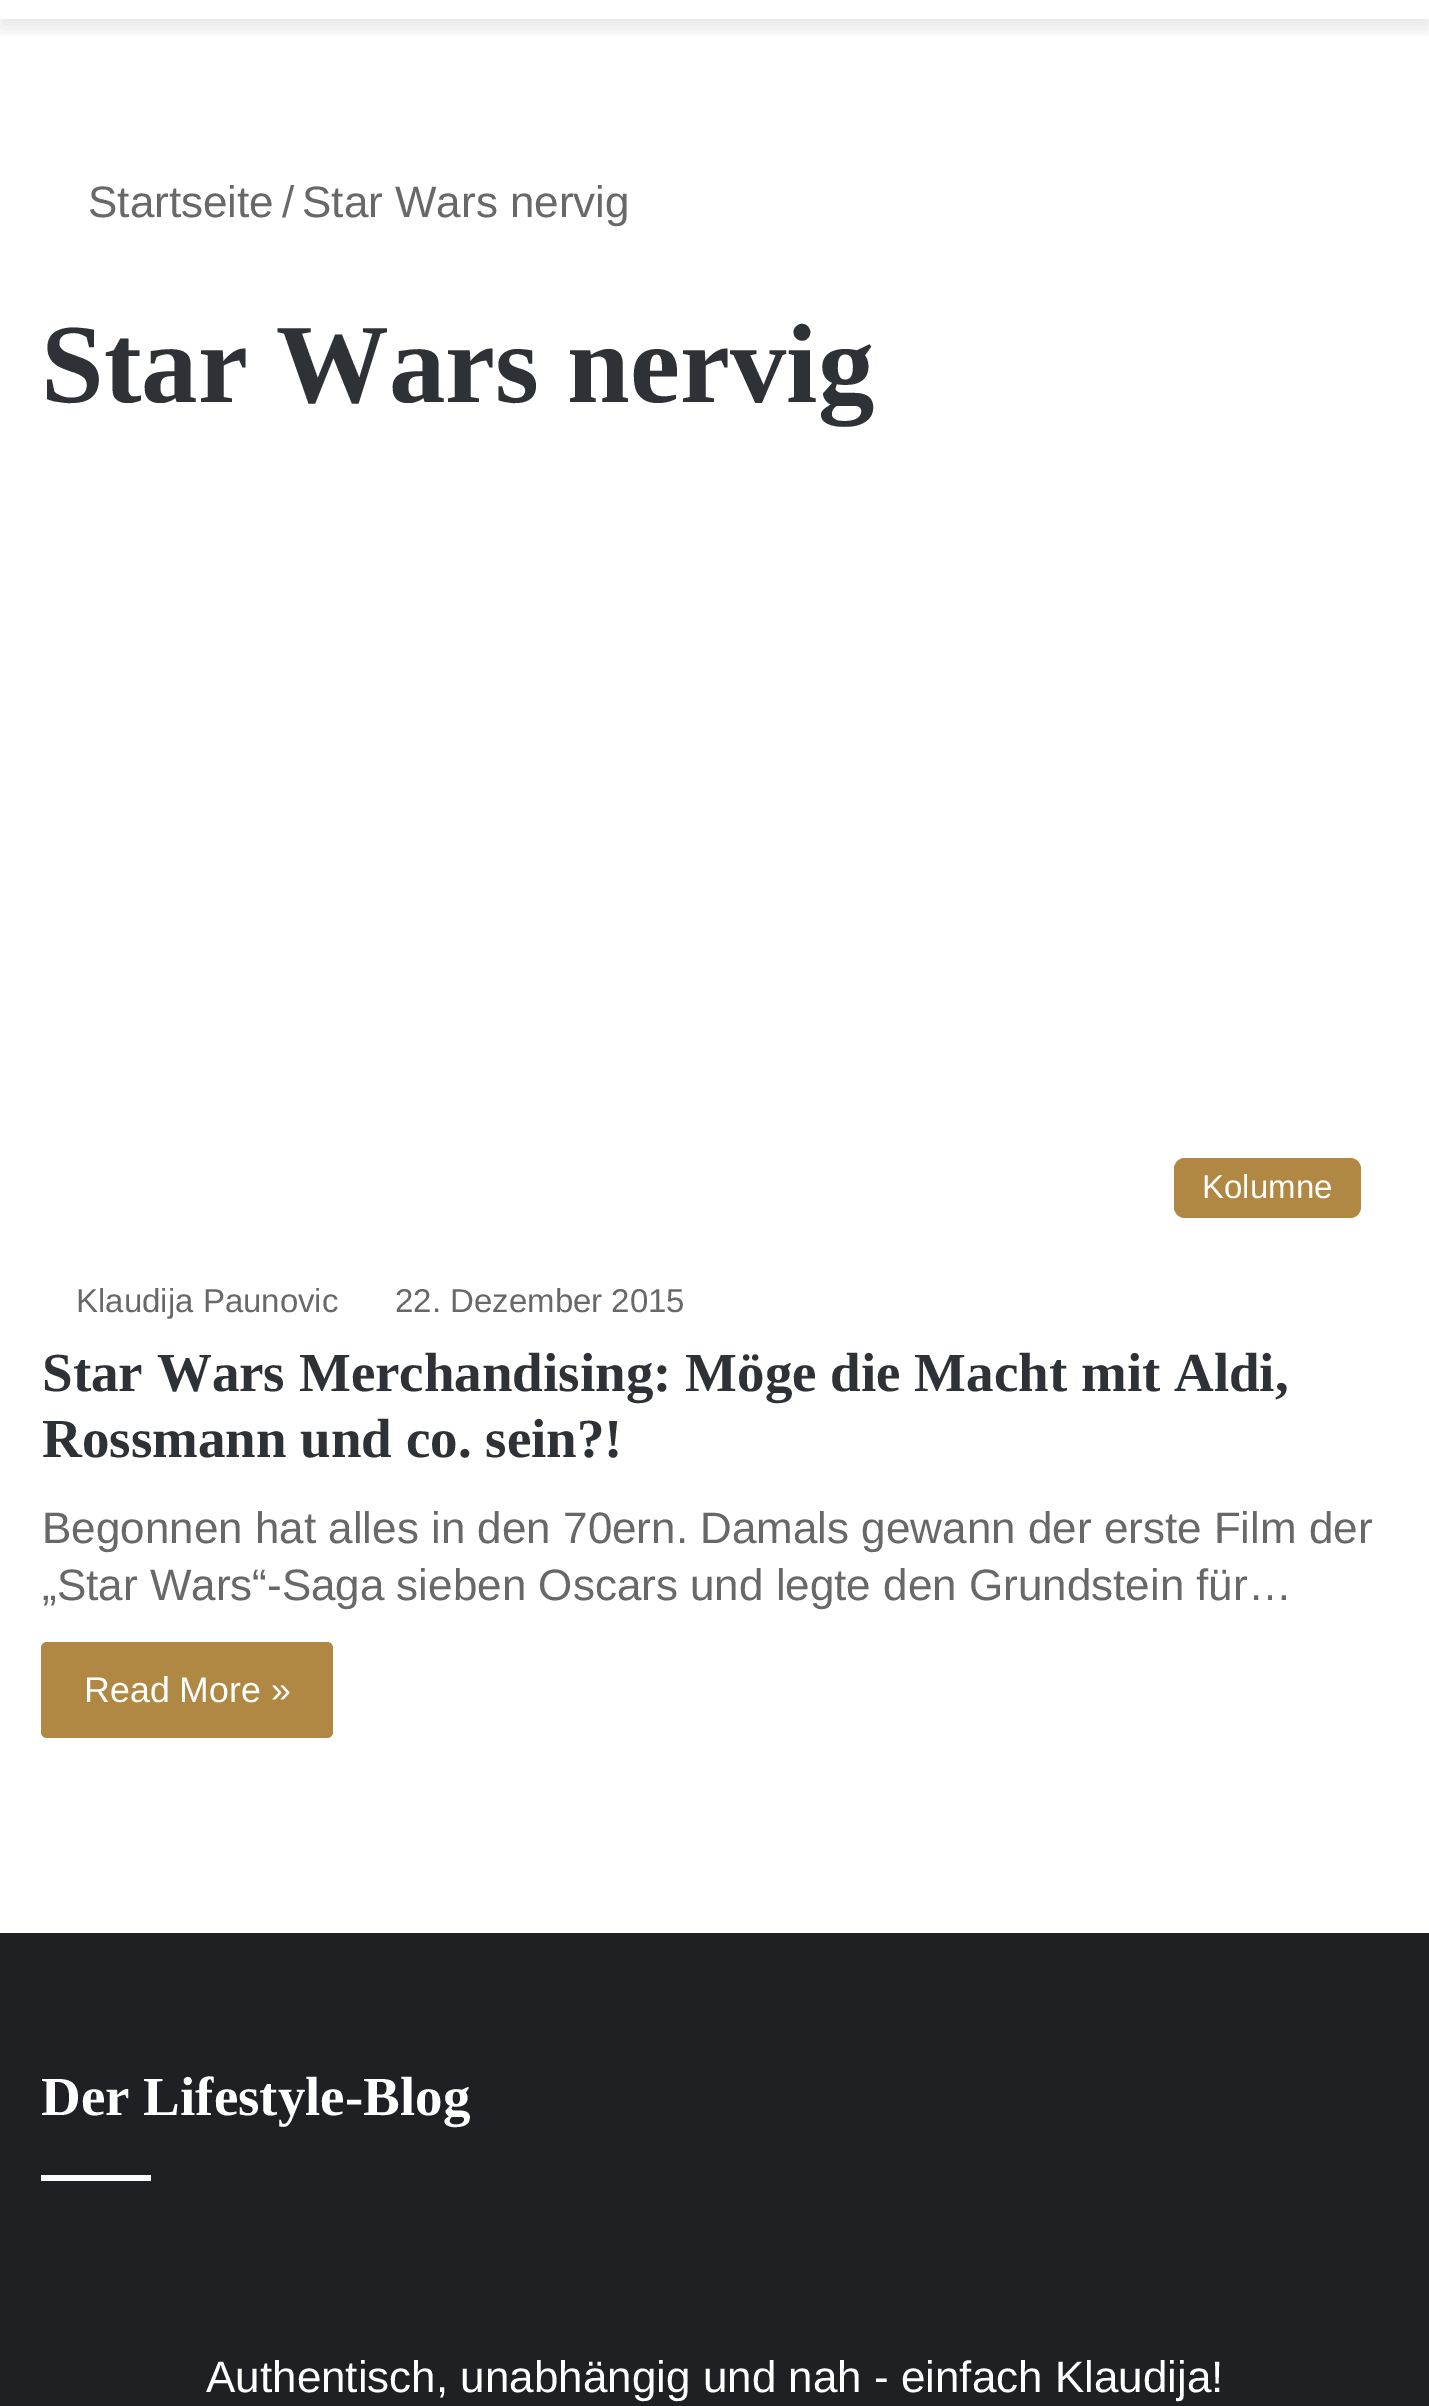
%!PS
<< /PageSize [1429 2406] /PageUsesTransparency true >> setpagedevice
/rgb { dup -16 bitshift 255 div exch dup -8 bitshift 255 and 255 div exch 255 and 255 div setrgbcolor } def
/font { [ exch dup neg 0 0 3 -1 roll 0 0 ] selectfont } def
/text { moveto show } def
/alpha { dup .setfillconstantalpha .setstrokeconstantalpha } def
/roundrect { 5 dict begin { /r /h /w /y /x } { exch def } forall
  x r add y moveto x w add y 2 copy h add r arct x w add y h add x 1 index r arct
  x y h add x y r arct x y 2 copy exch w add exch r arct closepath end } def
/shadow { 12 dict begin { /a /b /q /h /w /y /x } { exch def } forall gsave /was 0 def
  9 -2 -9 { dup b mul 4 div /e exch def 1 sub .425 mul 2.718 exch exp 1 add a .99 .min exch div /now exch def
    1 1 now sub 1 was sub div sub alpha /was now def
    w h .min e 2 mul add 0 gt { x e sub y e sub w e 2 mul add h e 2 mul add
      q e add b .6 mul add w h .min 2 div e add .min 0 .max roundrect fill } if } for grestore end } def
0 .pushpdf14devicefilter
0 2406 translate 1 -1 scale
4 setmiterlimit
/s1 { /LiberationSans-Regular 44 font 16#686868 rgb } def
/s2 { /LiberationSerif-Bold 112.75 font 16#2E3136 rgb } def
/s3 { /LiberationSans-Regular 33 font 16#FFFFFF rgb } def
/s4 { /LiberationSans-Regular 33 font 16#686868 rgb } def
/s5 { /LiberationSerif-Bold 55 font 16#2E3136 rgb } def
/s6 { /LiberationSans-Regular 35.75 font 16#FFFFFF rgb } def
/s7 { /LiberationSerif-Bold 55 font 16#FFFFFF rgb } def
/s8 { /LiberationSans-Regular 44 font 16#FFFFFF rgb } def
16#FFFFFF rgb
0 0 1429 2406 rectfill
gsave
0 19 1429 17 rectclip
16#000000 rgb
0 -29 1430 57 0 9.5 0.1 shadow
grestore
s1
(Startseite) 88 217 text
(/) 282 217 text
(Star Wars nervig) 302 217 text
s2
(Star Wars nervig) 41 402 text
16#B08844 rgb
1174 1158 187 60 11 roundrect fill
s3
(Kolumne) 1202 1198 text
s4
(Klaudija Paunovic) 76 1312 text
(22. Dezember 2015) 395 1312 text
s5
(Star Wars Merchandising: Möge die Macht mit Aldi,) 42 1391 text
(Rossmann und co. sein?!) 42 1457 text
s1
(Begonnen hat alles in den 70ern. Damals gewann der erste Film der) 42 1543 text
(„Star Wars“-Saga sieben Oscars und legte den Grundstein für…) 42 1600 text
16#B08844 rgb
41 1642 292 96 6 roundrect fill
s6
(Read More ») 84 1702 text
16#1F2024 rgb
0 1933 1429 473 rectfill
s7
(Der Lifestyle-Blog) 41 2115 text
16#FDFDFD rgb
41 2175 110 6 rectfill
s8
(Authentisch, unabhängig und nah - einfach Klaudija!) 206 2392 text
.poppdf14devicefilter showpage
